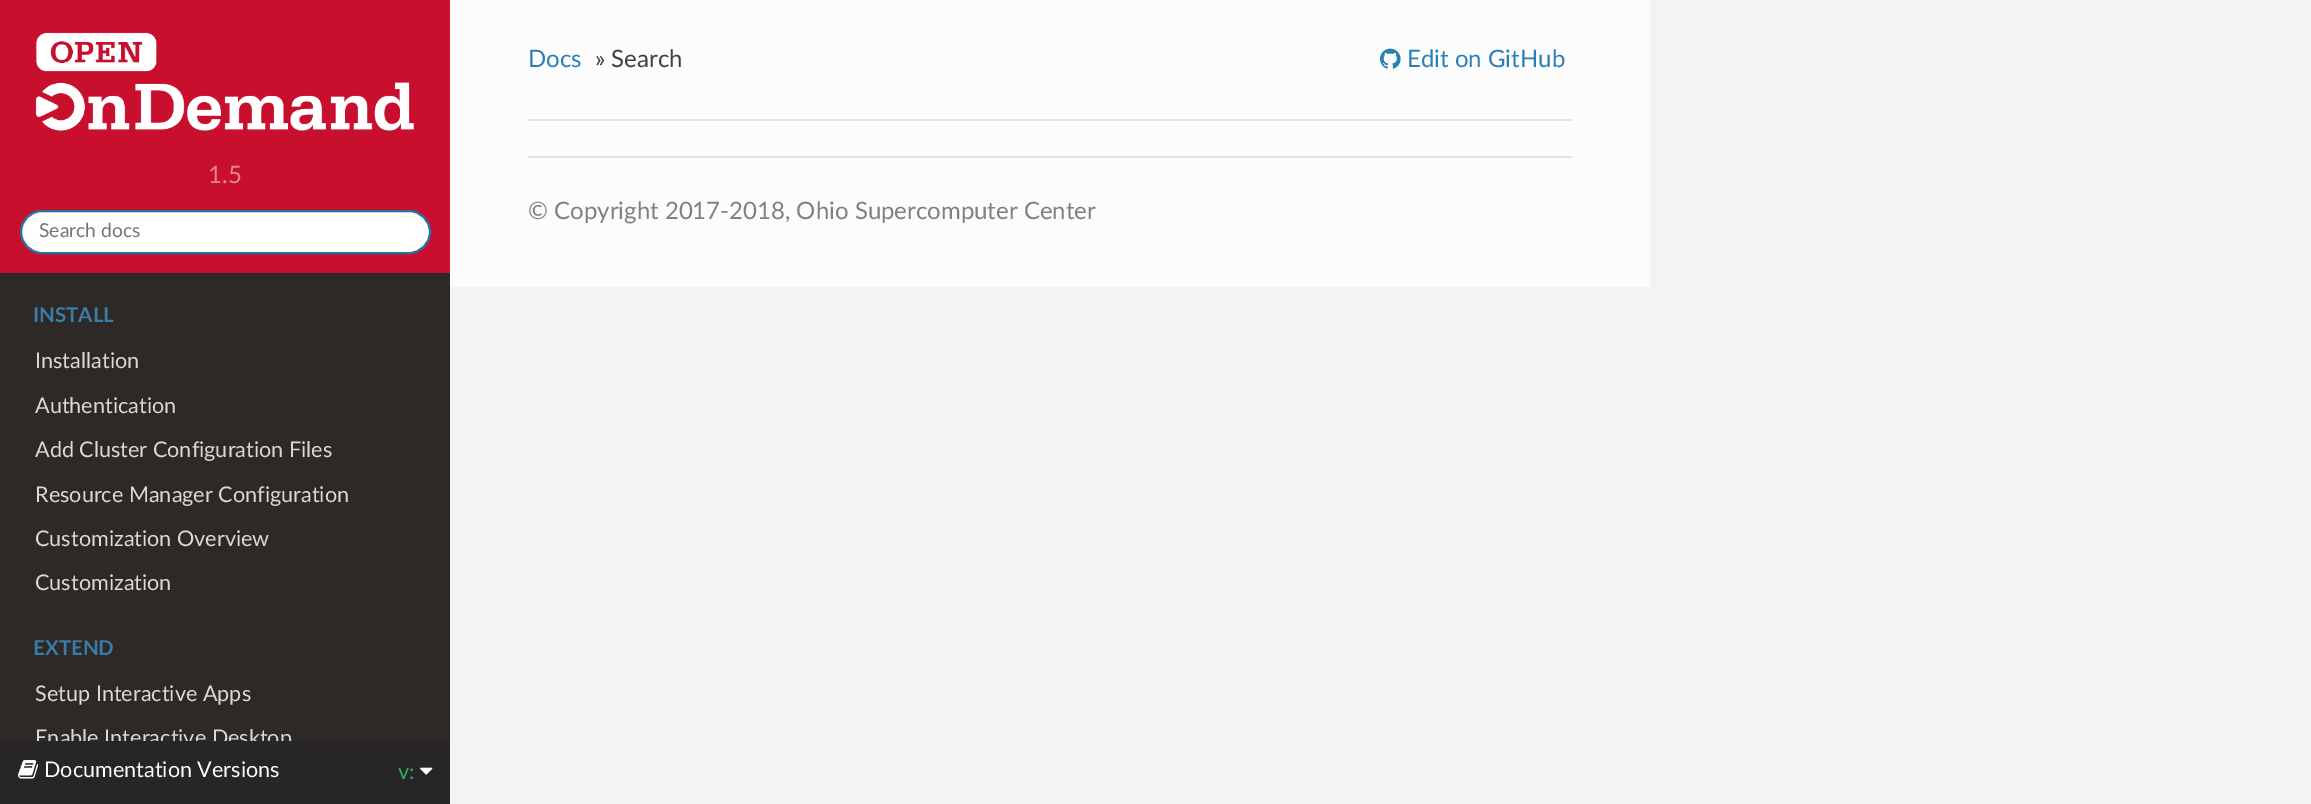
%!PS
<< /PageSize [2311 804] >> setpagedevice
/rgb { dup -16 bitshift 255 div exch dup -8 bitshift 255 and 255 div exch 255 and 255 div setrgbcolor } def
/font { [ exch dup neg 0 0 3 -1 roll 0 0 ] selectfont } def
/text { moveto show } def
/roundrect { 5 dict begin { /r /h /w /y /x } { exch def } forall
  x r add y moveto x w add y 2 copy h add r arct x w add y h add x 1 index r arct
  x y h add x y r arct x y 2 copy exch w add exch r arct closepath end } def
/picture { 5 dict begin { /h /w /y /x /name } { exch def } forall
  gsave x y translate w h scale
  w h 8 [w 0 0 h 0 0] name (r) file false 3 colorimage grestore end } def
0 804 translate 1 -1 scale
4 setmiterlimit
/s1 { /Lato-Regular 24 font 16#2980B9 rgb } def
/s2 { /Lato-Regular 24 font 16#404040 rgb } def
/s3 { /Lato-Regular 24 font 16#808080 rgb } def
/s4 { /Lato-Regular 24 font 16#E48897 rgb } def
/s5 { /Lato-Regular 19.25 font 16#757575 rgb } def
/s6 { /Lato-Bold 20.5 font 16#3A7CA8 rgb } def
/s7 { /Lato-Regular 21.6 font 16#D9D9D9 rgb } def
/s8 { /Lato-Regular 21.6 font 16#FCFCFC rgb } def
/s9 { /Lato-Regular 21.6 font 16#27AE60 rgb } def
16#F3F3F3 rgb
0 0 2311 804 rectfill
16#FCFCFC rgb
450 0 1200 287 rectfill
s1
(Docs) 528 67 text
s2
(» Search) 595 67 text
(pic1.raw) 1380 48 21 21 picture
s1
(Edit on GitHub) 1407 67 text
16#E1E4E5 rgb
528 119 1044 2 rectfill
528 156 1044 2 rectfill
s3
(© Copyright 2017-2018, Ohio Supercomputer Center) 528 219 text
16#2D2926 rgb
0 273 450 468 rectfill
16#C8102E rgb
0 0 450 273 rectfill
(pic2.raw) 35 32 379 99 picture
s4
(1.5) 208 183 text
16#FFFFFF rgb
21 211 409 42 21 roundrect gsave fill grestore
16#2472A4 rgb
2 setlinewidth
stroke
s5
(Search docs) 39 237 text
s6
(INSTALL) 33 322 text
s7
(Installation) 35 368 text
(Authentication) 35 413 text
(Add Cluster Configuration Files) 35 457 text
(Resource Manager Configuration) 35 502 text
(Customization Overview) 35 546 text
(Customization) 35 590 text
s6
(EXTEND) 33 655 text
s7
(Setup Interactive Apps) 35 701 text
(Enable Interactive Desktop) 35 745 text
16#272525 rgb
0 741 450 63 rectfill
(pic3.raw) 18 760 20 19 picture
s8
(Documentation Versions) 44 777 text
s9
(v:) 398 779 text
(pic4.raw) 420 767 13 8 picture
showpage
